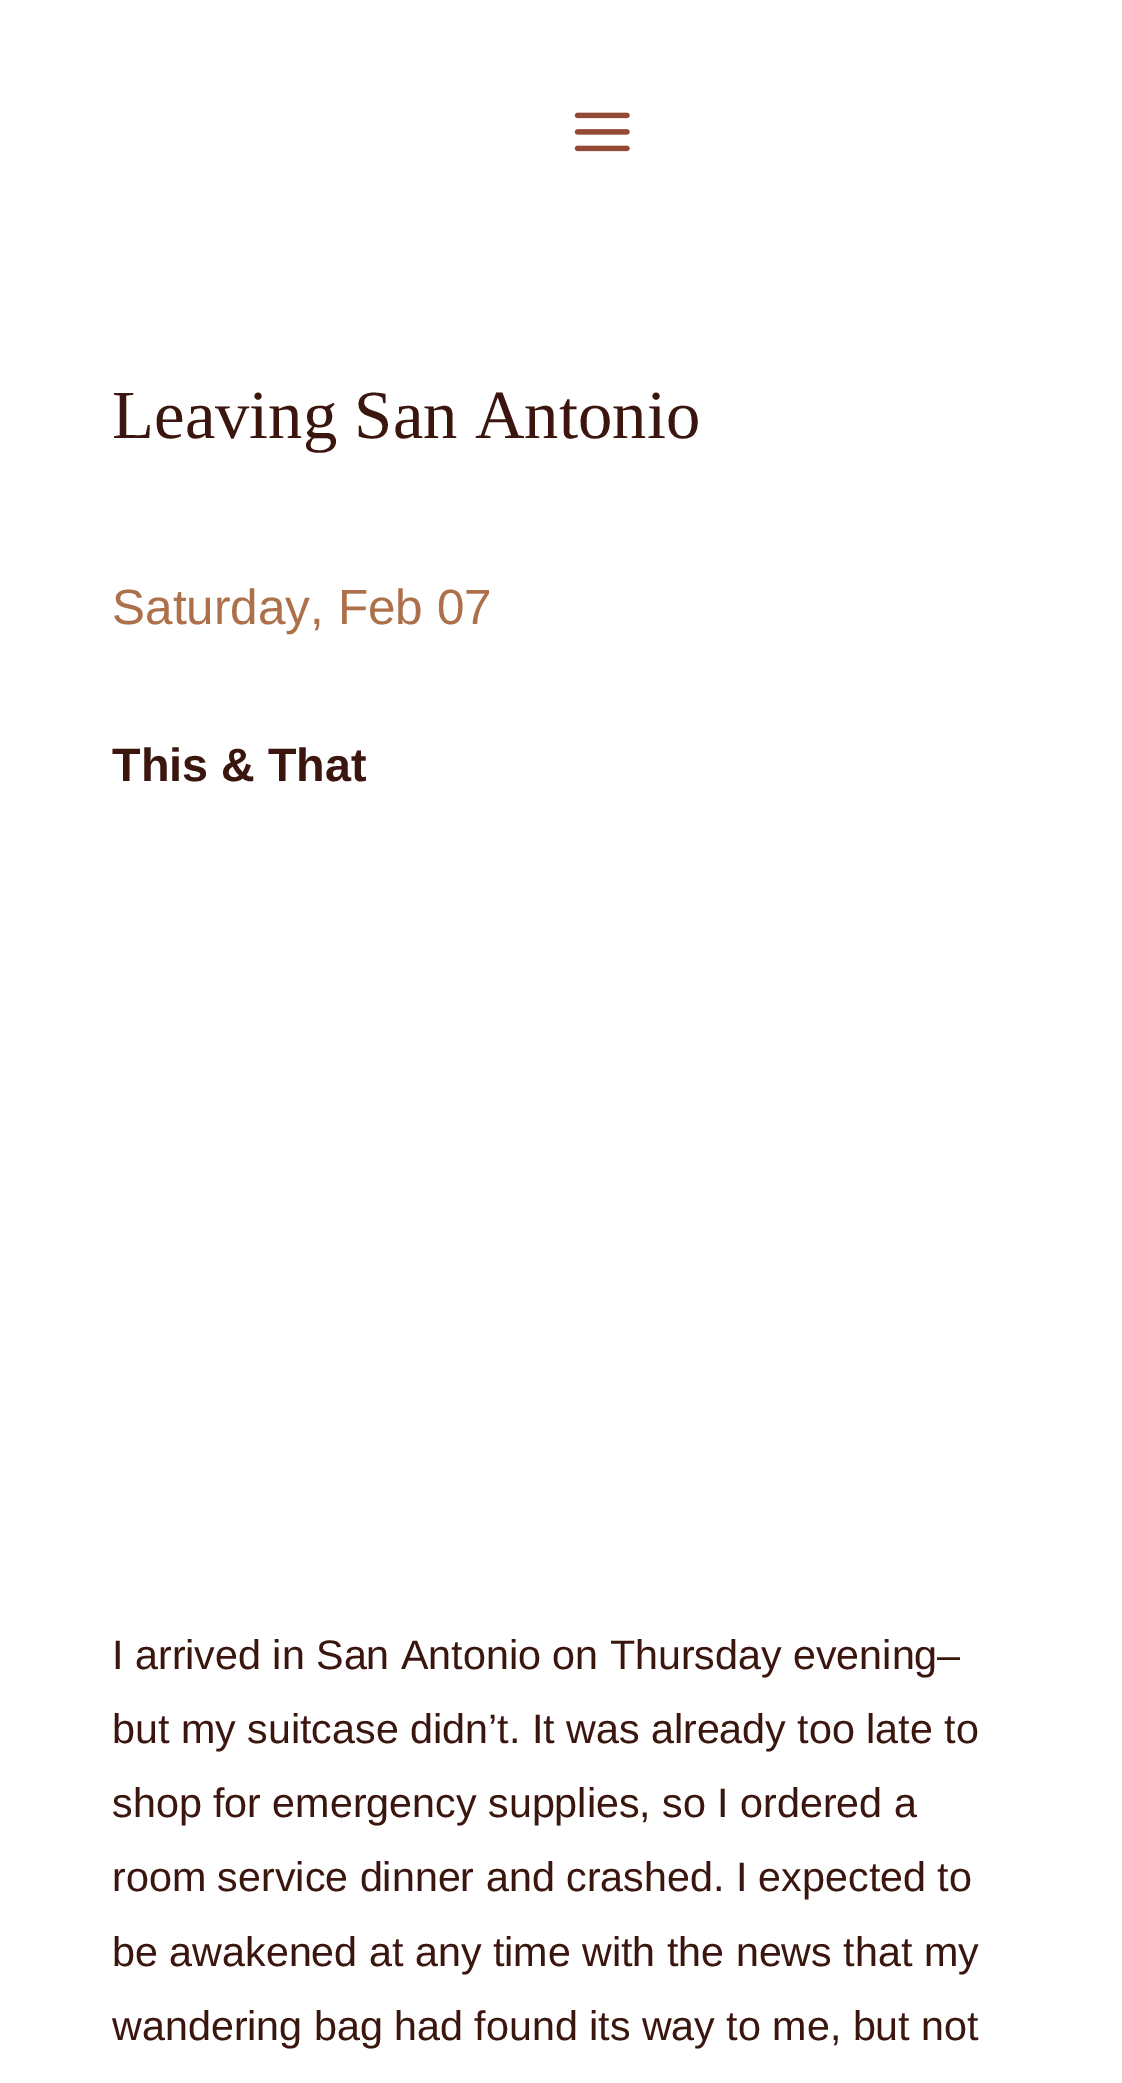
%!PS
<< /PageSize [1122 2083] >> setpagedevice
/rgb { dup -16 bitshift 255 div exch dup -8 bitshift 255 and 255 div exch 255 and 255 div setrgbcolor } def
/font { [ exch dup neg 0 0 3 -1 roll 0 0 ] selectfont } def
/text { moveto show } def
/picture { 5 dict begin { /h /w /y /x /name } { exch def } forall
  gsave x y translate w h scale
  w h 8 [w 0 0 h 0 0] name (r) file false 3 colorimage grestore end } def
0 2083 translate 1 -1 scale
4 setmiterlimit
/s1 { /LiberationSerif-Regular 68.75 font 16#3A160E rgb } def
/s2 { /LiberationSans-Regular 49.5 font 16#AC714A rgb } def
/s3 { /LiberationSans-Bold 46.75 font 16#3A160E rgb } def
/s4 { /LiberationSans-Regular 41.25 font 16#3A160E rgb } def
16#FFFFFF rgb
0 0 1122 2083 rectfill
(pic1.raw) 574 112 56 40 picture
s1
(Leaving San Antonio) 112 438 text
s2
(Saturday, Feb 07) 112 624 text
s3
(This & That) 112 781 text
s4
(I arrived in San Antonio on Thursday evening–) 112 1669 text
(but my suitcase didn’t. It was already too late to) 112 1743 text
(shop for emergency supplies, so I ordered a) 112 1817 text
(room service dinner and crashed. I expected to) 112 1891 text
(be awakened at any time with the news that my) 112 1966 text
(wandering bag had found its way to me, but not) 112 2040 text
showpage
